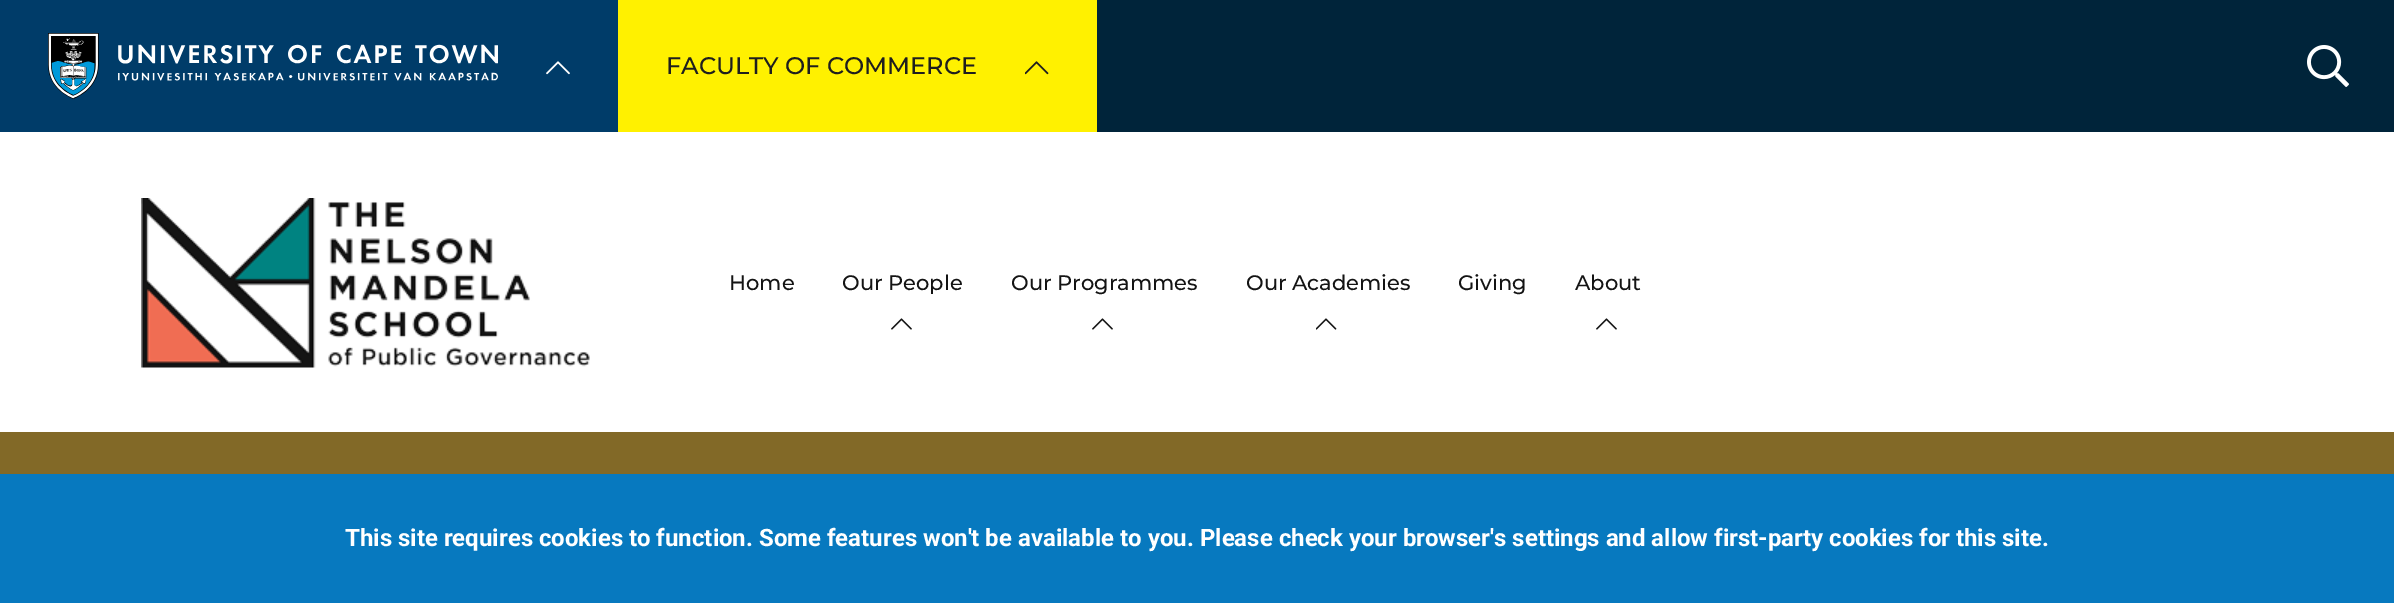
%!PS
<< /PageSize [2394 603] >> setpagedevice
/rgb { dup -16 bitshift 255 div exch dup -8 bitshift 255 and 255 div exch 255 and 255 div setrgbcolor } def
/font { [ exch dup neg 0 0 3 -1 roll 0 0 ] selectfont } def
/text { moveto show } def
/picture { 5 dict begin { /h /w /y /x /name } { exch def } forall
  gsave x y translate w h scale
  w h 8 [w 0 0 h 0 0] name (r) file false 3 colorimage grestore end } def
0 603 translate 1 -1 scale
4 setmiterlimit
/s1 { /Montserrat-Medium 24 font 16#1E1E1E rgb } def
/s2 { /Montserrat-Medium 21 font 16#141414 rgb } def
/s3 { /Roboto-Bold 24 font 16#FFFFFF rgb } def
16#826927 rgb
0 0 2394 603 rectfill
16#00243A rgb
1097 0 1297 132 rectfill
16#003C69 rgb
0 0 618 132 rectfill
(pic1.raw) 48 33 450 66 picture
(pic2.raw) 546 61 24 14 picture
16#FFF100 rgb
618 0 479 132 rectfill
s1
(FACULTY OF COMMERCE) 666 74 text
(pic3.raw) 1025 61 24 14 picture
(pic4.raw) 2307 45 42 42 picture
16#FFFFFF rgb
0 132 2394 300 rectfill
(pic5.raw) 141 198 449 170 picture
s2
(Home) 729 290 text
(Our People) 842 290 text
(pic6.raw) 891 318 21 12 picture
(Our Programmes) 1011 290 text
(pic6.raw) 1092 318 21 12 picture
(Our Academies) 1246 290 text
(pic7.raw) 1316 318 21 12 picture
(Giving) 1458 290 text
(About) 1575 290 text
(pic6.raw) 1596 318 21 12 picture
16#0779BF rgb
0 474 2394 129 rectfill
s3
(This site requires cookies to function. Some features won't be available to you. Please check your browser's settings and allow first-party cookies for this site.) 345 546 text
showpage
